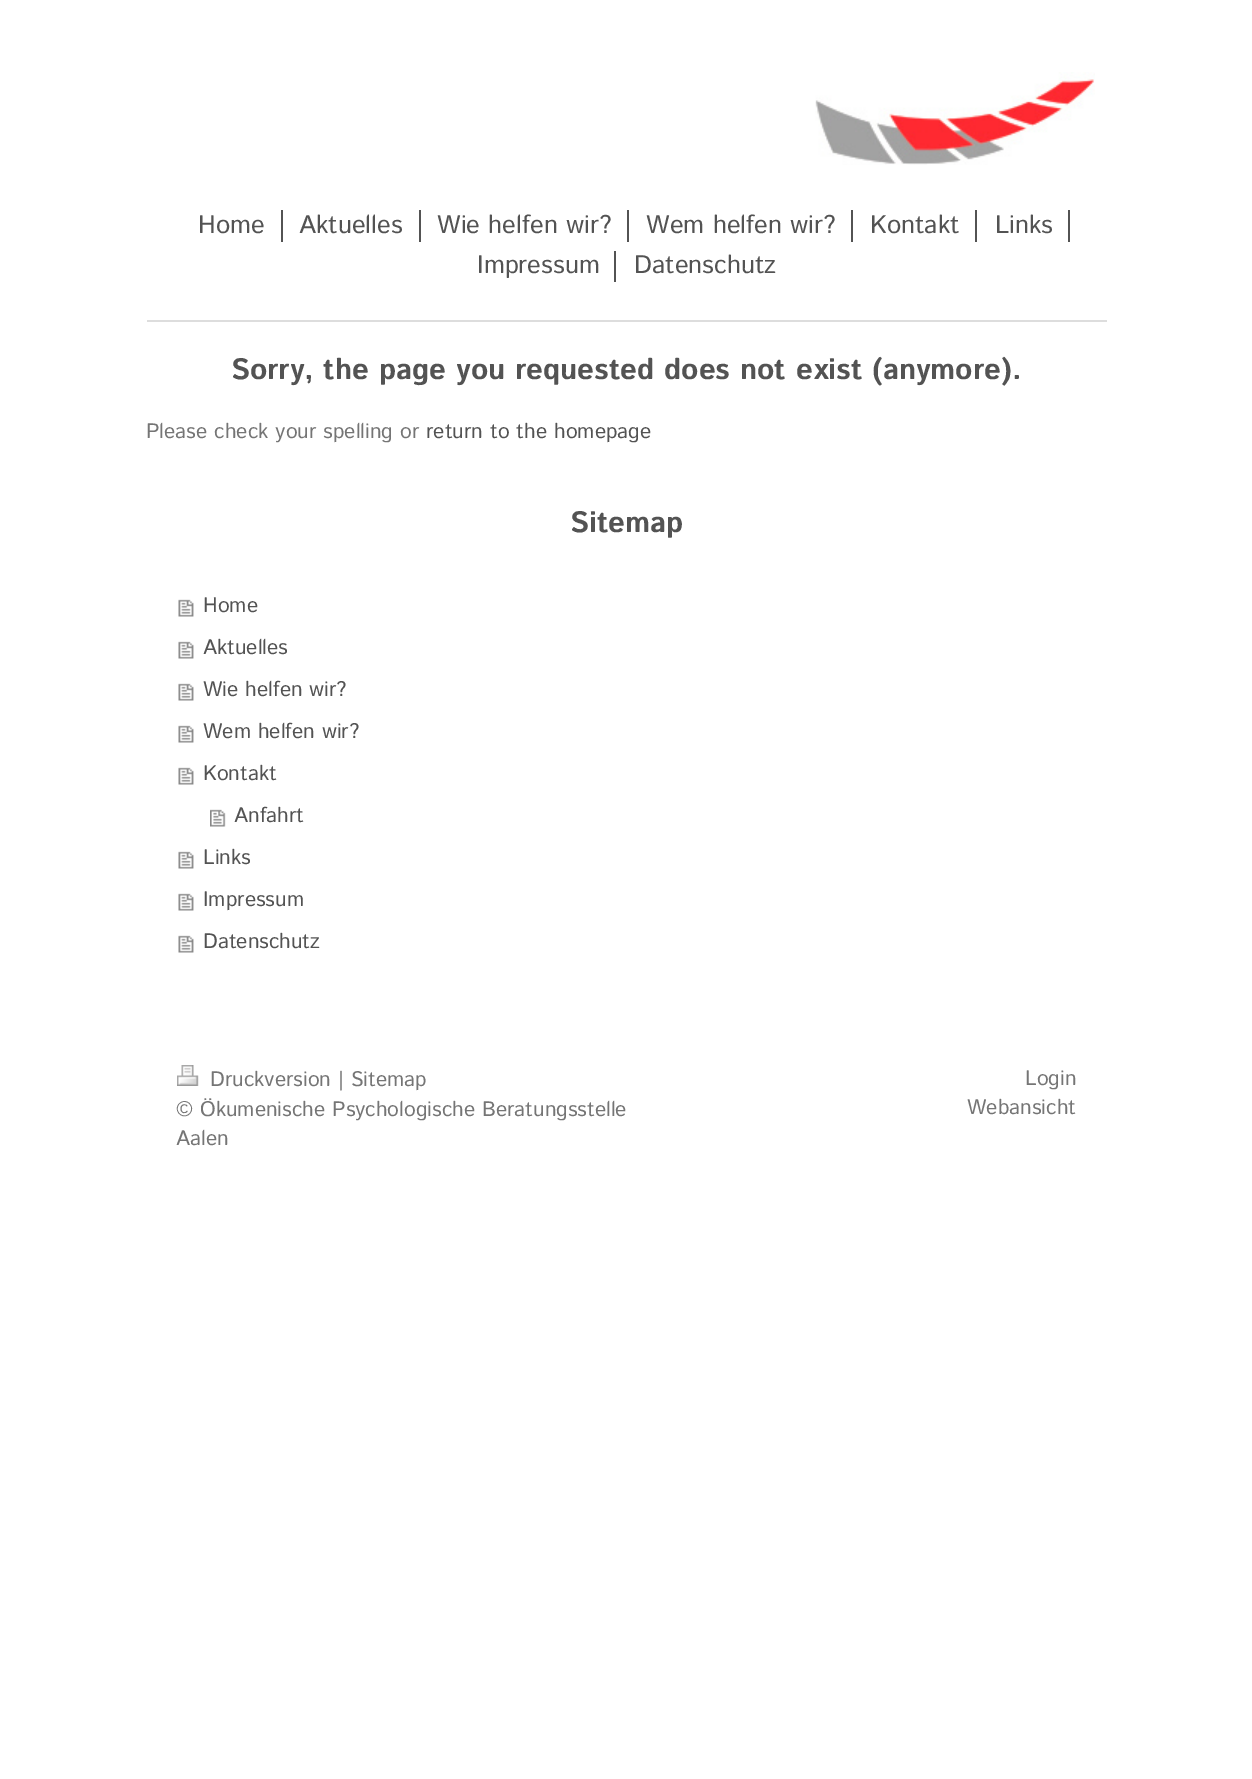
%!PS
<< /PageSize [1252 1779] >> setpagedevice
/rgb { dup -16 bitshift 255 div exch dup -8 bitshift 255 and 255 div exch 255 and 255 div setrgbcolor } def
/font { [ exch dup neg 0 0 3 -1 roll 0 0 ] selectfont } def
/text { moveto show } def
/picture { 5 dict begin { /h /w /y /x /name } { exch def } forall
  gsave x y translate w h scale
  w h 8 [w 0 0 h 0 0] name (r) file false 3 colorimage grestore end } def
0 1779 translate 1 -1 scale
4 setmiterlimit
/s1 { /IstokWeb-Regular 25.5 font 16#535353 rgb } def
/s2 { /IstokWeb-Bold 29.4 font 16#535353 rgb } def
/s3 { /IstokWeb-Regular 21 font 16#757575 rgb } def
/s4 { /IstokWeb-Regular 21 font 16#535353 rgb } def
16#FFFFFF rgb
0 0 1252 1779 rectfill
(pic1.raw) 815 72 280 93 picture
16#DDDDDD rgb
147 320 960 2 rectfill
16#535353 rgb
281 210 2 32 rectfill
s1
(Home) 198 233 text
419 210 2 32 rectfill
(Aktuelles) 299 233 text
627 210 2 32 rectfill
(Wie helfen wir?) 437 233 text
851 210 2 32 rectfill
(Wem helfen wir?) 646 233 text
975 210 2 32 rectfill
(Kontakt) 870 233 text
1068 210 2 32 rectfill
(Links) 995 233 text
614 251 2 31 rectfill
(Impressum) 477 273 text
(Datenschutz) 634 273 text
s2
(Sorry, the page you requested does not exist \(anymore\).) 231 379 text
s3
(Please check your spelling or) 146 438 text
s4
(return to the homepage) 426 438 text
s2
(Sitemap) 570 532 text
(pic2.raw) 178 599 16 18 picture
s4
(Home) 203 612 text
(pic2.raw) 178 641 16 18 picture
(Aktuelles) 203 654 text
(pic2.raw) 178 683 16 18 picture
(Wie helfen wir?) 203 696 text
(pic2.raw) 178 725 16 18 picture
(Wem helfen wir?) 203 738 text
(pic2.raw) 178 767 16 18 picture
(Kontakt) 203 780 text
(pic3.raw) 210 809 16 18 picture
(Anfahrt) 234 822 text
(pic2.raw) 178 851 16 18 picture
(Links) 203 864 text
(pic2.raw) 178 893 16 18 picture
(Impressum) 203 906 text
(pic2.raw) 178 935 16 18 picture
(Datenschutz) 203 948 text
(pic4.raw) 177 1065 22 21 picture
s3
(Druckversion | Sitemap) 210 1086 text
(© Ökumenische Psychologische Beratungsstelle) 176 1116 text
(Aalen) 176 1145 text
(Login) 1025 1085 text
(Webansicht) 967 1114 text
showpage
